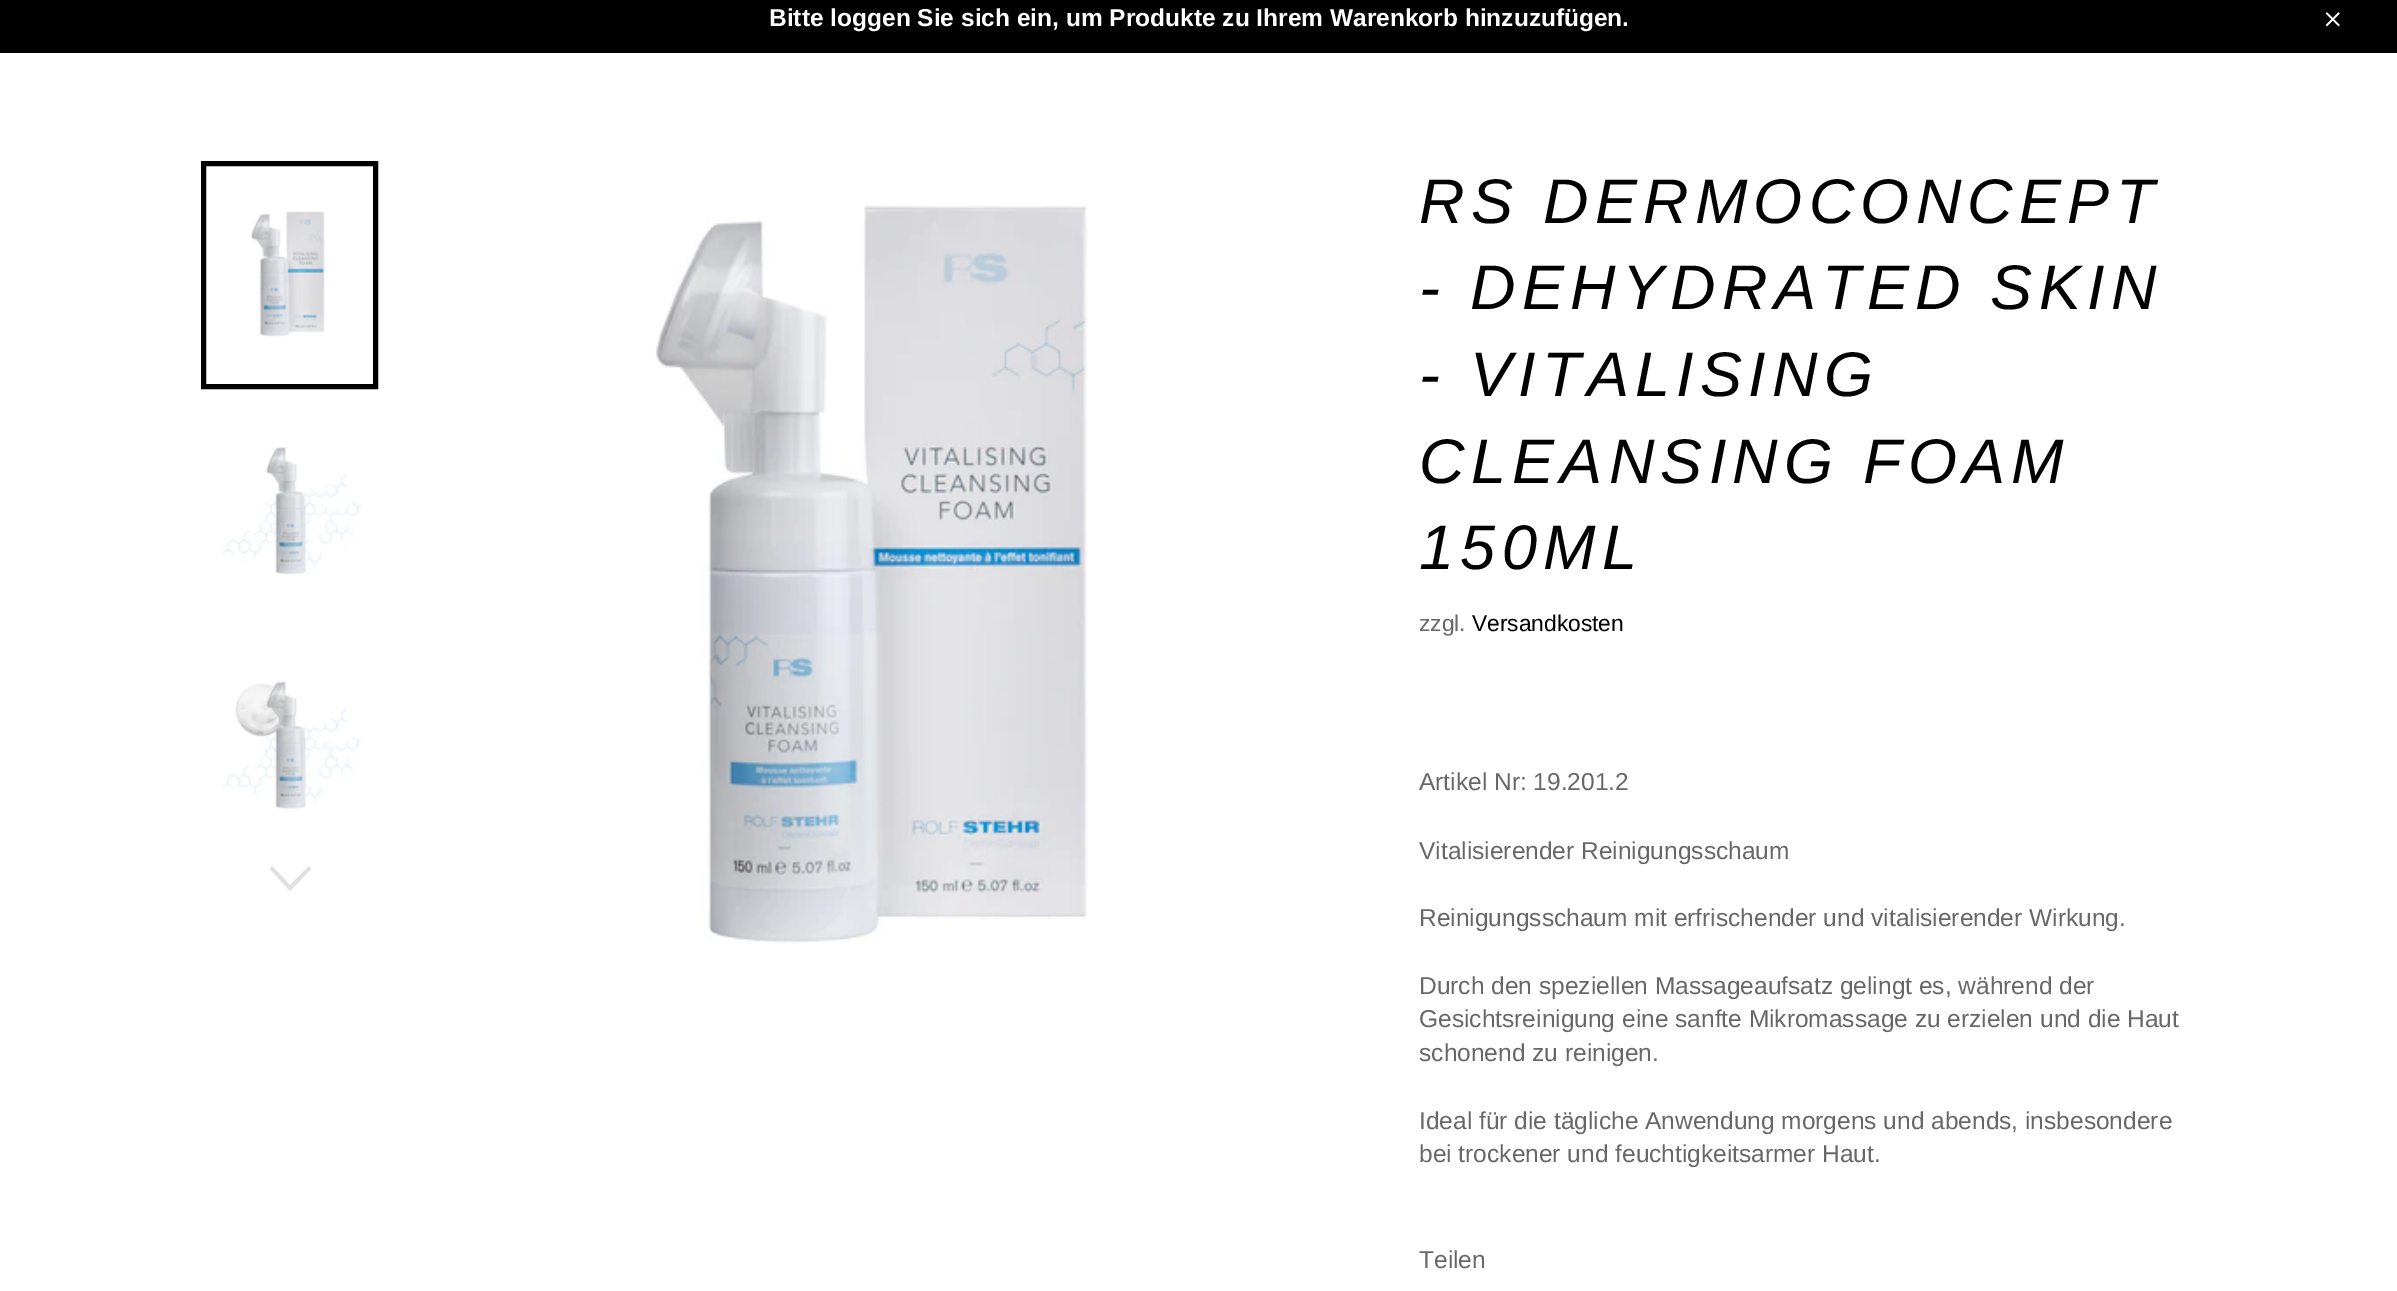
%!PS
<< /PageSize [2397 1291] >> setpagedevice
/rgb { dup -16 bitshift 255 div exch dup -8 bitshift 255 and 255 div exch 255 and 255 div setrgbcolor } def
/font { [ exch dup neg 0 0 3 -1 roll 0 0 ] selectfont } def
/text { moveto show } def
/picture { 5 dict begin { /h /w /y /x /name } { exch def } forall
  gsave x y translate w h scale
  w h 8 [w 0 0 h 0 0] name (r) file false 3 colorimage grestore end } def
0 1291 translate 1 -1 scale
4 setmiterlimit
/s1 { /LiberationSans-Bold 24.5 font 16#FFFFFF rgb } def
/s2 { /LiberationSans-Regular 22.75 font 16#686666 rgb } def
/s3 { /LiberationSans-Regular 22.75 font 16#000000 rgb } def
/s4 { /LiberationSans-Regular 24.5 font 16#686666 rgb } def
16#FFFFFF rgb
0 0 2397 1291 rectfill
16#000000 rgb
0 0 2397 53 rectfill
s1
(Bitte loggen Sie sich ein, um Produkte zu Ihrem Warenkorb hinzuzufügen.) 769 26 text
(pic1.raw) 2325 12 15 15 picture
(pic2.raw) 251 211 74 126 picture
16#000000 rgb
5 setlinewidth
203.5 163.5 172 223 rectstroke
(pic3.raw) 222 447 139 129 picture
(pic4.raw) 222 681 139 129 picture
16#E1E0E0 rgb
309 866 moveto 311 869 lineto 290 891 lineto 270 869 lineto 272 866 lineto 290 885 lineto closepath fill
(pic5.raw) 655 205 433 739 picture
/LiberationSans-Italic 63 font
16#000000 rgb
1419 223 moveto 6.25 0 (RS DERMOCONCEPT) ashow
1419 309 moveto 6.25 0 (- DEHYDRATED SKIN) ashow
1419 396 moveto 6.25 0 (- VITALISING) ashow
1419 483 moveto 6.25 0 (CLEANSING FOAM) ashow
1419 569 moveto 6.25 0 (150ML) ashow
s2
(zzgl.) 1419 631 text
s3
(Versandkosten) 1472 631 text
s4
(Artikel Nr: 19.201.2) 1419 790 text
(Vitalisierender Reinigungsschaum) 1419 859 text
(Reinigungsschaum mit erfrischender und vitalisierender Wirkung.) 1419 926 text
(Durch den speziellen Massageaufsatz gelingt es, während der) 1419 994 text
(Gesichtsreinigung eine sanfte Mikromassage zu erzielen und die Haut) 1419 1027 text
(schonend zu reinigen.) 1419 1061 text
(Ideal für die tägliche Anwendung morgens und abends, insbesondere) 1419 1129 text
(bei trockener und feuchtigkeitsarmer Haut.) 1419 1162 text
(Teilen) 1419 1268 text
showpage
